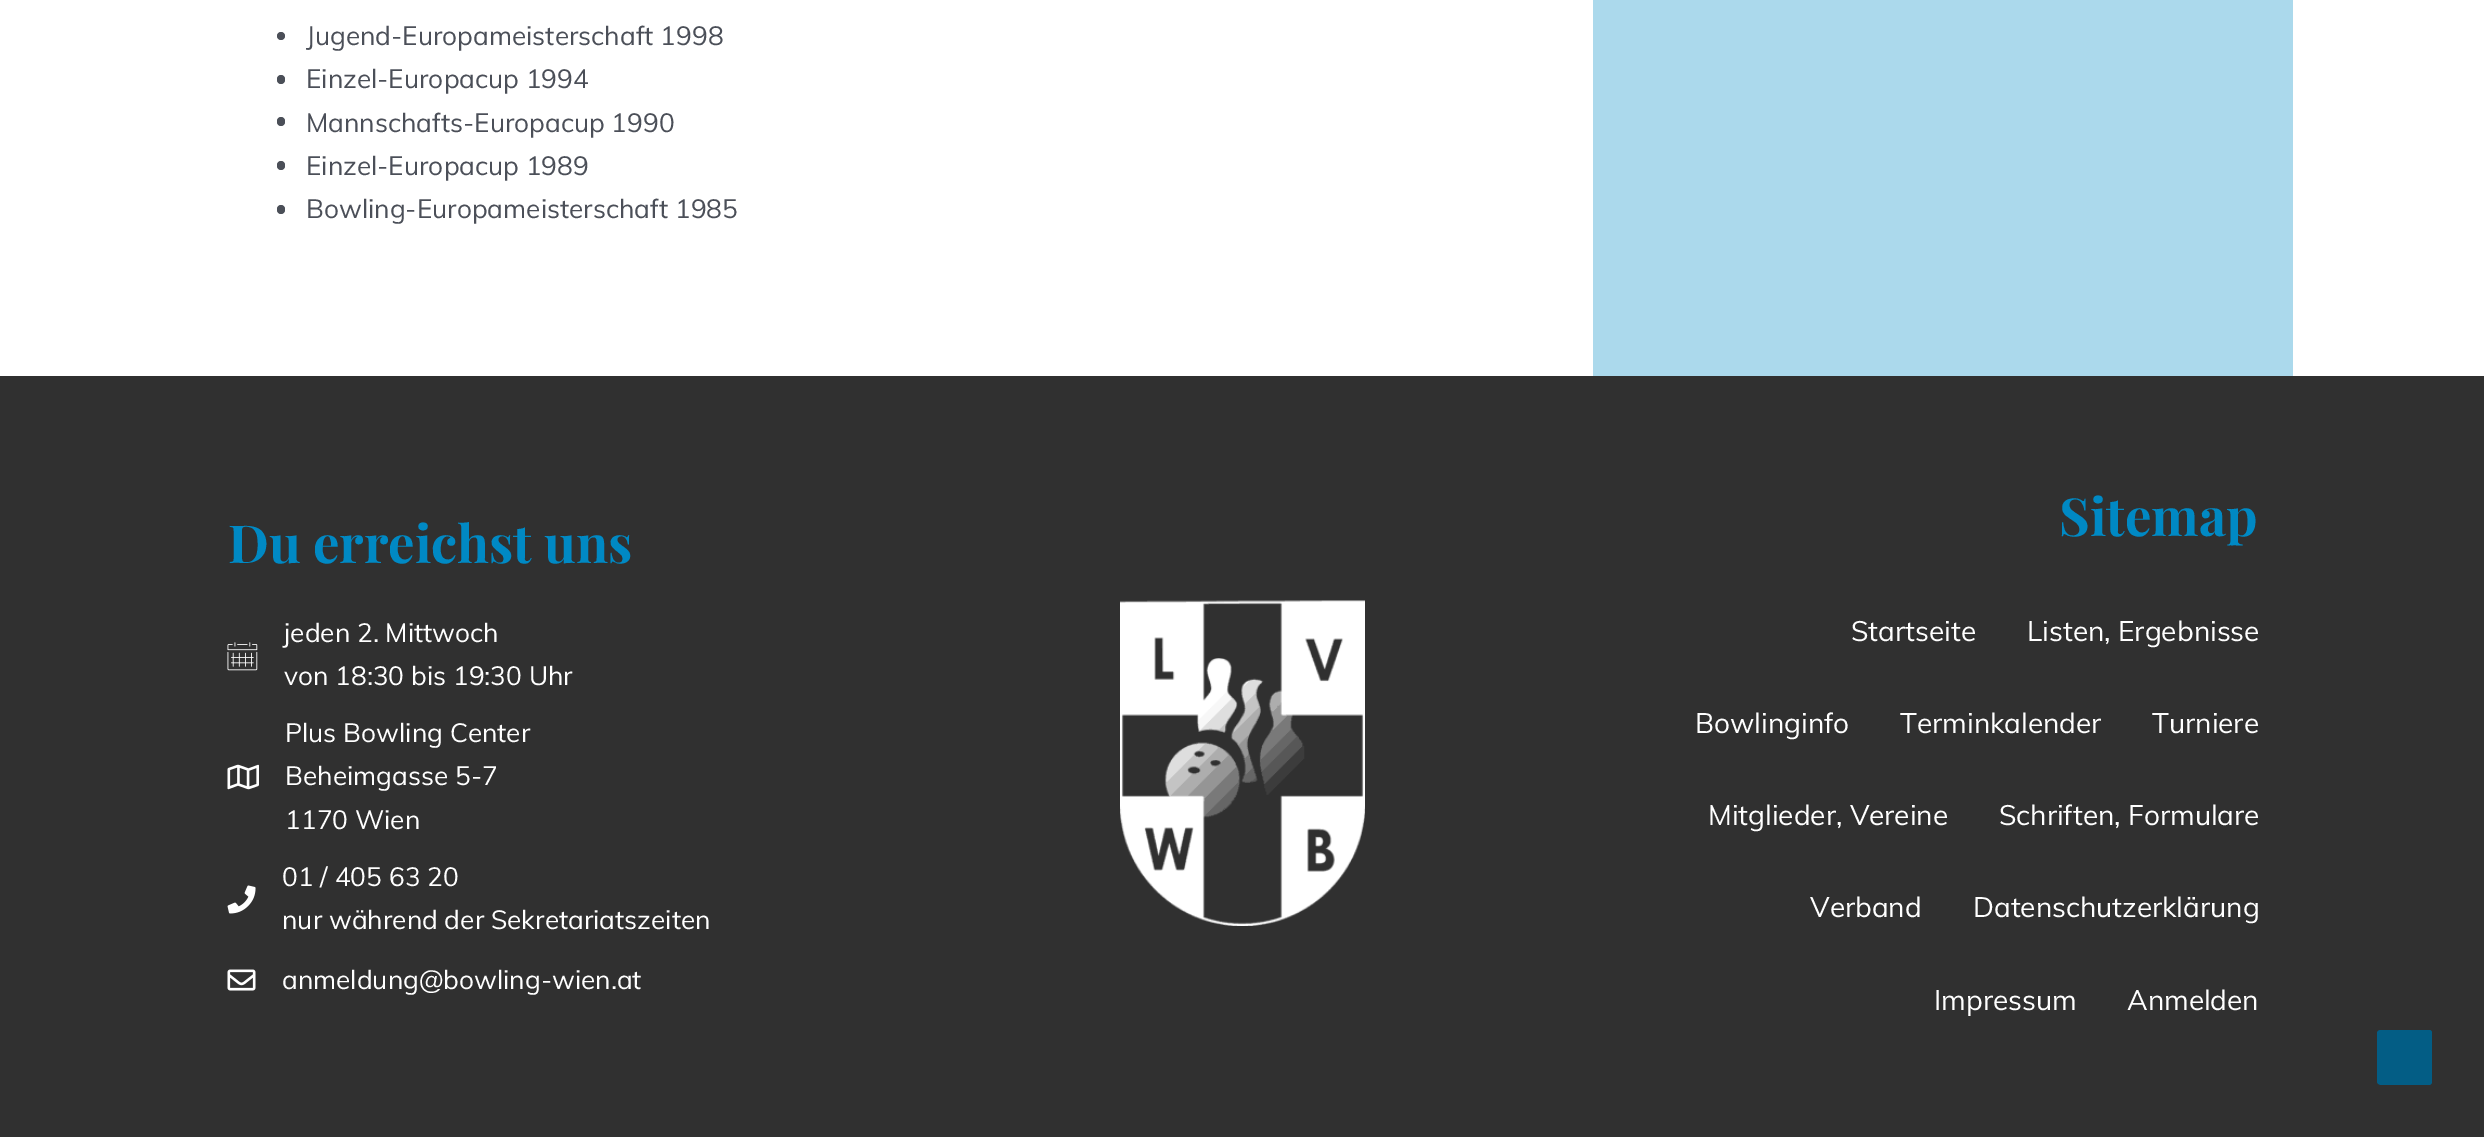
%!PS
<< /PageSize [2484 1137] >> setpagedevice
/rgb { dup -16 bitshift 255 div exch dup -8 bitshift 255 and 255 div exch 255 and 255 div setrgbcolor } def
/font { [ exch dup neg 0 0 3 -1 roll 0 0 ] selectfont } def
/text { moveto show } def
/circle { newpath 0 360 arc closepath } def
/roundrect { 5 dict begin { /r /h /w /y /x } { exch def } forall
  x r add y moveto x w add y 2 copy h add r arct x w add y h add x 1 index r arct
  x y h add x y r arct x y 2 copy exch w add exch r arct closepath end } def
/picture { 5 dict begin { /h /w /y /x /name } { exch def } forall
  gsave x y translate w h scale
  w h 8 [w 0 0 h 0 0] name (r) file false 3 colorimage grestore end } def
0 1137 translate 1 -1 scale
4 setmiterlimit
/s1 { /Muli-Regular 26.25 font 16#4B4F58 rgb } def
/s2 { /PlayfairDisplay-Bold 52.5 font 16#0089C4 rgb } def
/s3 { /Muli-Regular 26.25 font 16#FFFFFF rgb } def
/s4 { /Muli-Regular 28 font 16#FFFFFF rgb } def
16#FFFFFF rgb
0 0 2484 1137 rectfill
16#4B4F58 rgb
281 36 4 circle fill
s1
(Jugend-Europameisterschaft 1998) 306 45 text
277 75 8 9 4 roundrect fill
(Einzel-Europacup 1994) 306 88 text
277 117 8 9 4 roundrect fill
(Mannschafts-Europacup 1990) 306 132 text
277 161 8 9 4 roundrect fill
(Einzel-Europacup 1989) 306 175 text
277 205 8 9 4 roundrect fill
(Bowling-Europameisterschaft 1985) 306 218 text
16#ABD9EC rgb
1593 0 700 376 rectfill
16#303030 rgb
0 376 2484 761 rectfill
s2
(Du erreichst uns) 228 563 text
(pic1.raw) 227 642 31 29 picture
s3
(jeden 2. Mittwoch) 284 642 text
(von 18:30 bis 19:30 Uhr) 284 685 text
(pic2.raw) 227 764 32 26 picture
(Plus Bowling Center) 285 742 text
(Beheimgasse 5-7) 285 785 text
(1170 Wien) 285 829 text
(pic3.raw) 227 885 29 29 picture
(01 / 405 63 20) 282 886 text
(nur während der Sekretariatszeiten) 282 929 text
(pic4.raw) 227 969 29 22 picture
(anmeldung@bowling-wien.at) 282 989 text
(pic5.raw) 1120 600 245 326 picture
s2
(Sitemap) 2059 536 text
s4
(Startseite) 1851 641 text
(Listen, Ergebnisse) 2027 641 text
(Bowlinginfo) 1695 733 text
(Terminkalender) 1900 733 text
(Turniere) 2152 733 text
(Mitglieder, Vereine) 1708 825 text
(Schriften, Formulare) 1999 825 text
(Verband) 1810 917 text
(Datenschutzerklärung) 1973 917 text
(Impressum) 1934 1010 text
(Anmelden) 2127 1010 text
16#035D85 rgb
2429 1085 moveto 2381 1085 lineto 2379 1085 2377 1083 2377 1082 curveto 2377 1033 lineto 2377 1031 2379 1030 2381 1030 curveto 2429 1030 lineto 2431 1030 2432 1031 2432 1033 curveto 2432 1082 lineto 2432 1083 2431 1085 2429 1085 curveto closepath fill
showpage
